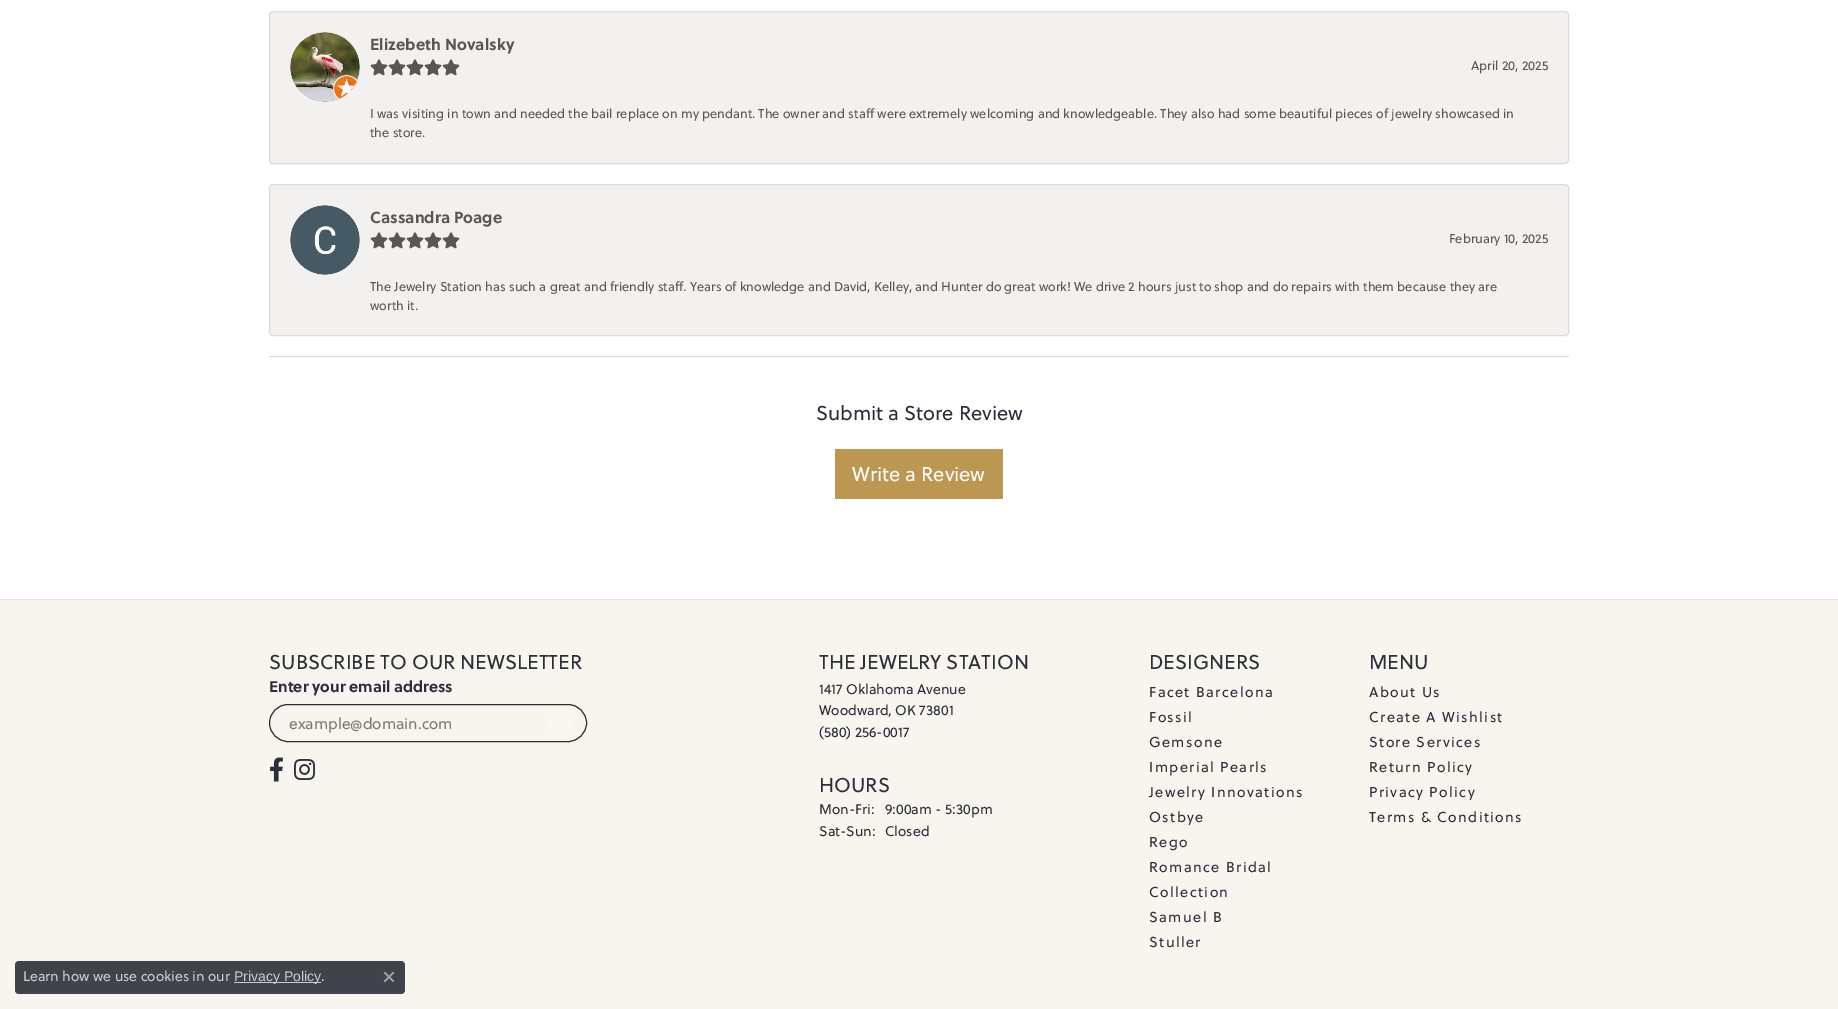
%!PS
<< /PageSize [1838 1009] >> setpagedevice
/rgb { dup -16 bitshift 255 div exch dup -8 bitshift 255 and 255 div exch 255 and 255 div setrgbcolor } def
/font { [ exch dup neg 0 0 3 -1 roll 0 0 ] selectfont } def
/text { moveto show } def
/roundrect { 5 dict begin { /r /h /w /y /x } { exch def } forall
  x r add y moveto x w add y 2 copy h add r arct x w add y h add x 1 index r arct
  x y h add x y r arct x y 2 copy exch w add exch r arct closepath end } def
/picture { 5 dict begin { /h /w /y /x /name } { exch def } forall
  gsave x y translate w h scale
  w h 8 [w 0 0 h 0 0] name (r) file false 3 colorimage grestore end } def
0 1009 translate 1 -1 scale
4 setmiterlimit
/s1 { /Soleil-Bold 16 font 16#595752 rgb } def
/s2 { /Soleil-Regular 12.8 font 16#595752 rgb } def
/s3 { /Soleil-Regular 20 font 16#2B2F3A rgb } def
/s4 { /Soleil-Regular 20 font 16#FFFFFF rgb } def
/s5 { /Soleil-Bold 15.5 font 16#2B2F3A rgb } def
/s6 { /Soleil-Regular 15.5 font 16#7C7B77 rgb } def
/s7 { /Soleil-Regular 14 font 16#2B2F3A rgb } def
/s8 { /Soleil-Regular 14 font 16#CCCCCC rgb } def
/s9 { /LiberationSans-Regular 14 font 16#CCCCCC rgb } def
16#F8F5EE rgb
0 0 1838 1009 rectfill
16#FFFFFF rgb
0 0 1838 599 rectfill
16#DDDBD9 rgb
269 356 1300 1 rectfill
16#F2F1F0 rgb
269.5 11.5 1299 152 3.5 roundrect gsave fill grestore
16#DDDBD9 rgb
stroke
(pic1.raw) 290 32 70 70 picture
s1
(Elizebeth Novalsky) 370 50 text
(pic2.raw) 370 59 18 17 picture
(pic2.raw) 388 59 18 17 picture
(pic2.raw) 406 59 18 17 picture
(pic2.raw) 424 59 18 17 picture
(pic2.raw) 442 59 18 17 picture
s2
(April 20, 2025) 1471 70 text
(I was visiting in town and needed the bail replace on my pendant. The owner and staff were extremely welcoming and knowledgeable. They also had some beautiful pieces of jewelry showcased in) 370 118 text
(the store.) 370 137 text
16#F2F1F0 rgb
269.5 184.5 1299 151 3.5 roundrect gsave fill grestore
16#DDDBD9 rgb
stroke
(pic3.raw) 290 205 70 70 picture
s1
(Cassandra Poage) 370 223 text
(pic2.raw) 370 232 18 17 picture
(pic2.raw) 388 232 18 17 picture
(pic2.raw) 406 232 18 17 picture
(pic2.raw) 424 232 18 17 picture
(pic2.raw) 442 232 18 17 picture
s2
(February 10, 2025) 1449 243 text
(The Jewelry Station has such a great and friendly staff. Years of knowledge and David, Kelley, and Hunter do great work! We drive 2 hours just to shop and do repairs with them because they are) 370 291 text
(worth it.) 370 310 text
s3
(Submit a Store Review) 816 420 text
16#BC9751 rgb
835 449 168 50 rectfill
s4
(Write a Review) 852 481 text
16#EDE4D4 rgb
0 599 1838 1 rectfill
s3
(SUBSCRIBE TO OUR NEWSLETTER) 269 669 text
s5
(Enter your email address) 269 692 text
269.5 704.5 317 37 18.5 roundrect stroke
s6
(example@domain.com) 289 729 text
(pic4.raw) 550 716 20 15 picture
(pic5.raw) 270 757 13 25 picture
(pic6.raw) 294 759 21 21 picture
s3
(THE JEWELRY STATION) 819 669 text
s7
(1417 Oklahoma Avenue) 819 694 text
(Woodward, OK 73801) 819 715 text
(\(580\) 256-0017) 819 737 text
s3
(HOURS) 819 792 text
s7
(Mon-Fri:) 819 814 text
(9:00am - 5:30pm) 885 814 text
(Sat-Sun:) 819 836 text
(Closed) 885 836 text
s3
(DESIGNERS) 1149 669 text
/Soleil-Regular 14.4 font
1149 697 moveto 1.4 0 (Facet Barcelona) ashow
1149 722 moveto 1.4 0 (Fossil) ashow
1149 747 moveto 1.4 0 (Gemsone) ashow
1149 772 moveto 1.4 0 (Imperial Pearls) ashow
1149 797 moveto 1.4 0 (Jewelry Innovations) ashow
1149 822 moveto 1.4 0 (Ostbye) ashow
1149 847 moveto 1.4 0 (Rego) ashow
1149 872 moveto 1.4 0 (Romance Bridal) ashow
1149 897 moveto 1.4 0 (Collection) ashow
1149 922 moveto 1.4 0 (Samuel B) ashow
1149 947 moveto 1.4 0 (Stuller) ashow
s3
(MENU) 1369 669 text
/Soleil-Regular 14.4 font
1369 697 moveto 1.4 0 (About Us) ashow
1369 722 moveto 1.4 0 (Create A Wishlist) ashow
1369 747 moveto 1.4 0 (Store Services) ashow
1369 772 moveto 1.4 0 (Return Policy) ashow
1369 797 moveto 1.4 0 (Privacy Policy) ashow
1369 822 moveto 1.4 0 (Terms & Conditions) ashow
16#40434C rgb
15 961 390 33 4 roundrect fill
s8
(Learn how we use cookies in our) 23 981 text
234 982 87 1 rectfill
s9
(Privacy Policy) 234 981 text
s8
(.) 321 981 text
(pic7.raw) 383 971 12 12 picture
showpage
